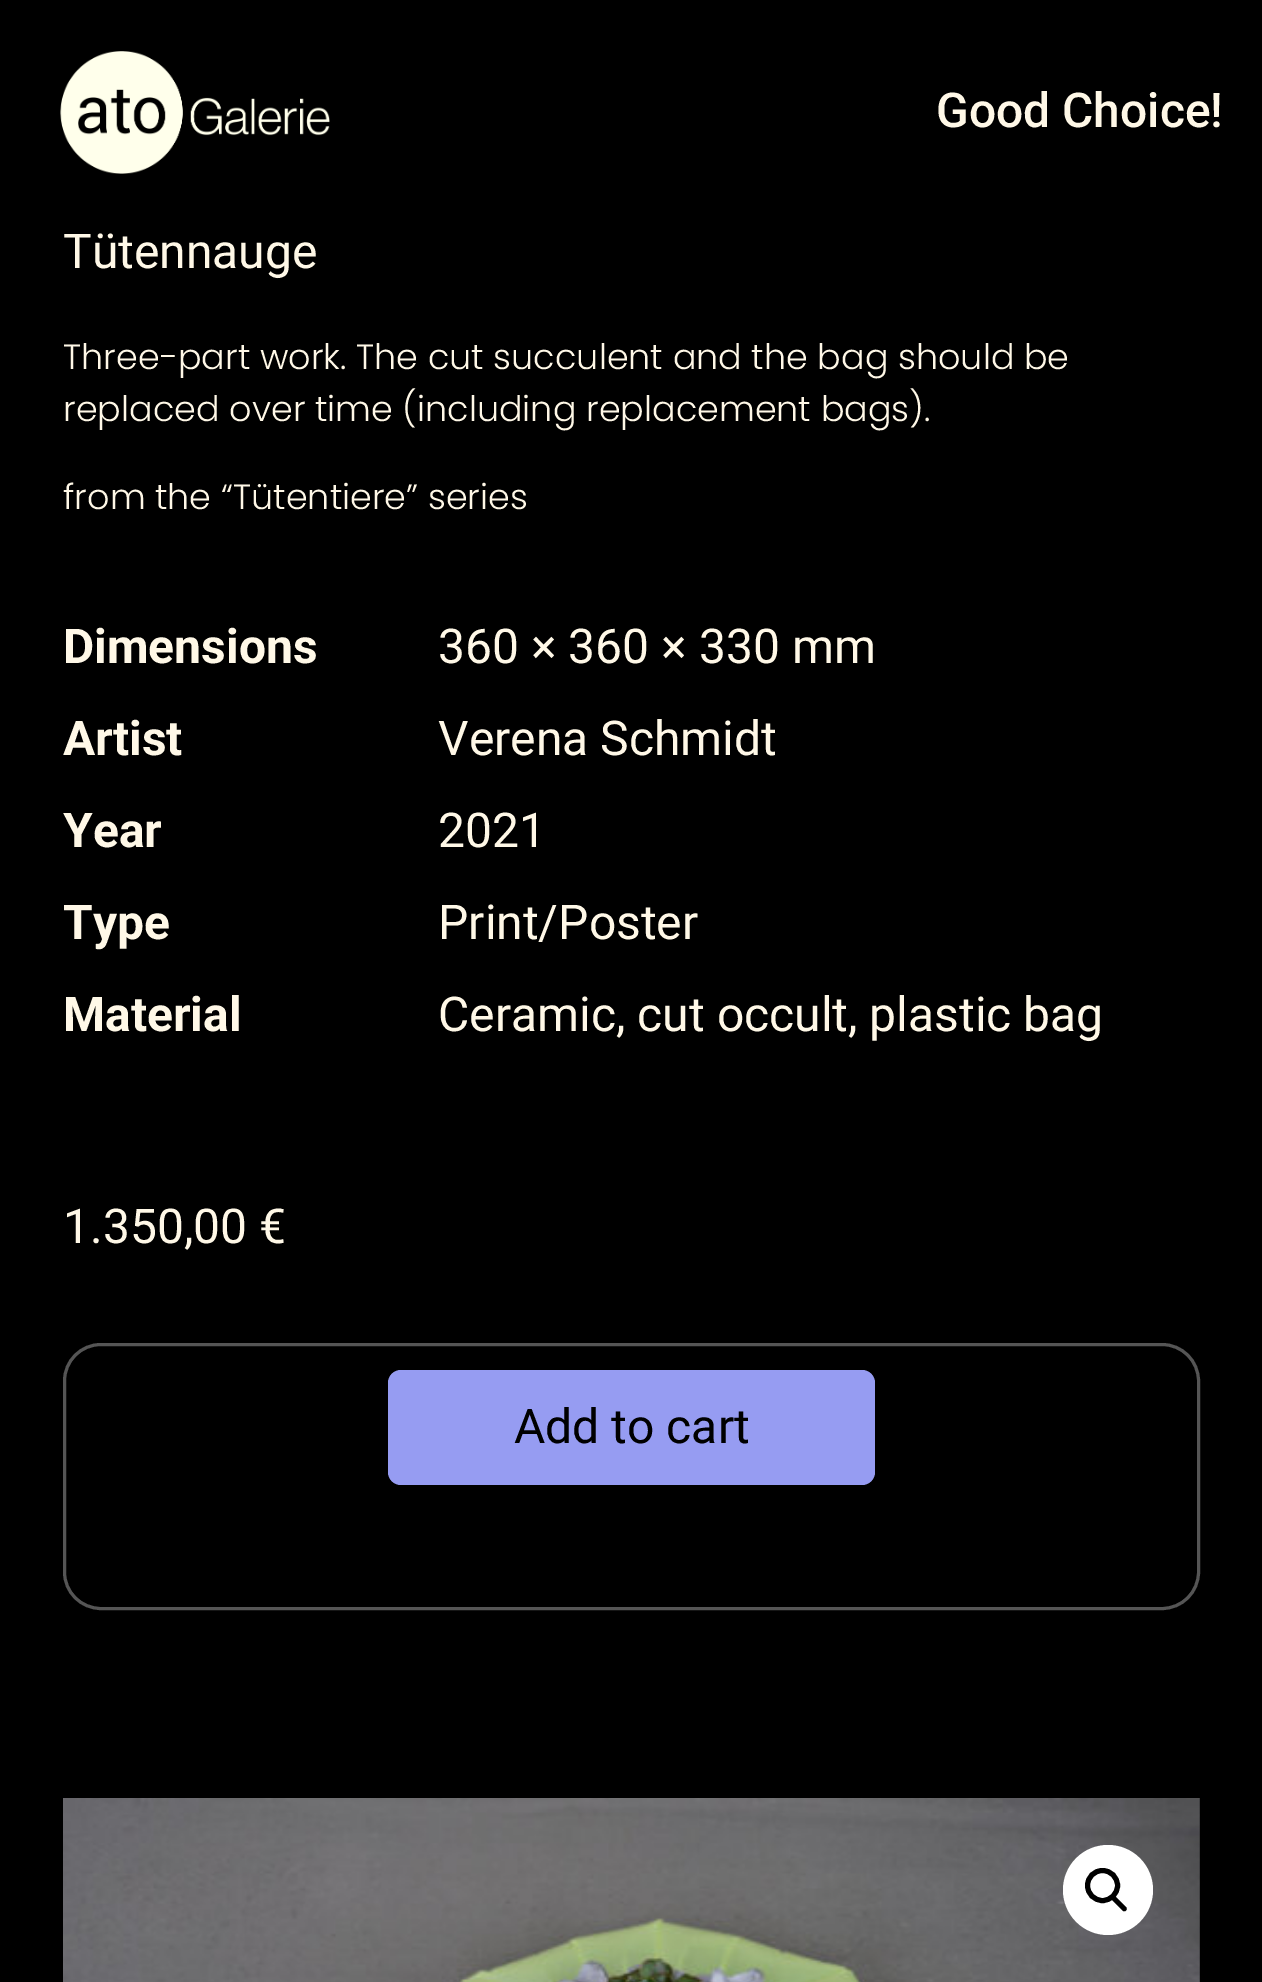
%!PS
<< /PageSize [1262 1982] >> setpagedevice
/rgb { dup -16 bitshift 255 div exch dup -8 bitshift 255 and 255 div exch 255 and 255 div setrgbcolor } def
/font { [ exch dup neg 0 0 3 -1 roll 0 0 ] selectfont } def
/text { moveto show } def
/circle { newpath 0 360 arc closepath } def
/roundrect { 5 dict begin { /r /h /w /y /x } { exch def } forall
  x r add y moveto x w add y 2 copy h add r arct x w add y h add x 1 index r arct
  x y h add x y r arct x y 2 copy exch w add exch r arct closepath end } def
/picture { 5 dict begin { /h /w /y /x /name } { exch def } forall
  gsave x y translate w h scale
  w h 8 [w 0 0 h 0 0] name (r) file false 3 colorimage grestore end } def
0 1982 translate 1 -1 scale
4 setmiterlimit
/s1 { /Roboto-Medium 48 font 16#FFF8E7 rgb } def
/s2 { /Roboto-Regular 48 font 16#FFF8E7 rgb } def
/s3 { /Poppins-Light 35 font 16#FFF8E7 rgb } def
/s4 { /Roboto-Bold 48 font 16#FFF8E7 rgb } def
/s5 { /Roboto-Regular 48 font 16#000000 rgb } def
16#000000 rgb
0 0 1262 1982 rectfill
(pic1.raw) 60 51 270 123 picture
s1
(Good Choice!) 936 127 text
s2
(Tütennauge) 63 268 text
s3
(Three-part work. The cut succulent and the bag should be) 63 369 text
(replaced over time \(including replacement bags\).) 63 421 text
(from the “Tütentiere” series) 63 509 text
s4
(Dimensions) 63 663 text
s2
(360 × 360 × 330 mm) 438 663 text
s4
(Artist) 63 755 text
s2
(Verena Schmidt) 438 755 text
s4
(Year) 63 847 text
s2
(2021) 438 847 text
s4
(Type) 63 939 text
s2
(Print/Poster) 438 939 text
s4
(Material) 63 1031 text
s2
(Ceramic, cut occult, plastic bag) 438 1031 text
(1.350,00 €) 63 1243 text
16#555555 rgb
3 setlinewidth
64.5 1344.5 1134 264 36.5 roundrect stroke
16#969CF2 rgb
388 1370 487 115 13 roundrect fill
s5
(Add to cart) 514 1443 text
(pic3.raw) 1199 1798 1 184 picture
(pic2.raw) 63 1798 1137 184 picture
16#FFFFFF rgb
1108 1890 45 circle fill
16#000000 rgb
5 setlinewidth
1102.5 1885.5 15 circle stroke
1112 1896.5 moveto 1113 1895.5 1114.5 1895.5 1115.5 1896.5 curveto 1126 1907 lineto 1127 1908 1127 1909.5 1126 1910.5 curveto 1125 1911.5 1123.5 1911.5 1122.5 1910.5 curveto 1112 1900 lineto 1111 1899 1111 1897.5 1112 1896.5 curveto closepath fill
showpage
